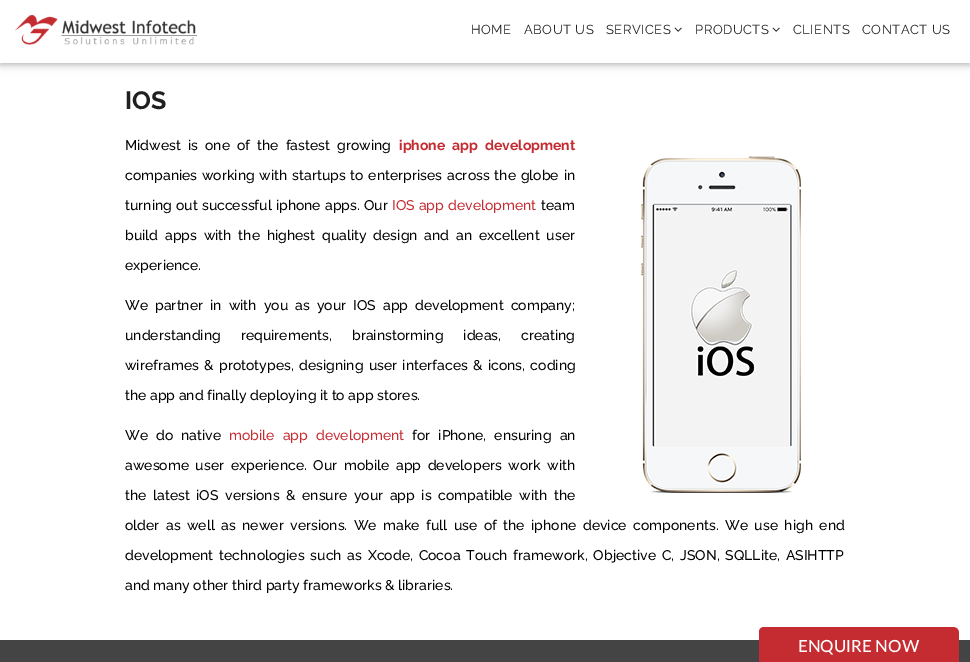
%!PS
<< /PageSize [970 662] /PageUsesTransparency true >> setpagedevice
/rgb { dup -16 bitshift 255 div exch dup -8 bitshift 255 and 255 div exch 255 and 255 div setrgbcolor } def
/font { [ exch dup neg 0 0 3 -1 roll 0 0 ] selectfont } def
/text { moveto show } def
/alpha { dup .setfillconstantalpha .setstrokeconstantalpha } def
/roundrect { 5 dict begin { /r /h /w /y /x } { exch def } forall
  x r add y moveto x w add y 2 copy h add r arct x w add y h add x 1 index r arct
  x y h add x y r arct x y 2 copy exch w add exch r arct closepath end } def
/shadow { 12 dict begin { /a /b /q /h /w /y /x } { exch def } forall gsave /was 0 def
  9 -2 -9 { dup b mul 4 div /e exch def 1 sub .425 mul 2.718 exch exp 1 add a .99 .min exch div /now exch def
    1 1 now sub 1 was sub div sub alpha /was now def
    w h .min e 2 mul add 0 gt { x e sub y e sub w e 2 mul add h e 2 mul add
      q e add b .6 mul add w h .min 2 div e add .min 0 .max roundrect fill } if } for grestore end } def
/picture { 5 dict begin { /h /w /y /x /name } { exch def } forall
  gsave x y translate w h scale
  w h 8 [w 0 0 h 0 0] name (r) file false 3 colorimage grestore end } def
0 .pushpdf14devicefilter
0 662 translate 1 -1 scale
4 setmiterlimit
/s1 { /Raleway-Bold 25 font 16#202020 rgb } def
/s2 { /Raleway-Medium 14 font 16#000000 rgb } def
/s3 { /Lato-Medium 16.75 font 16#FFFFFF rgb } def
16#FFFFFF rgb
0 0 970 662 rectfill
16#000000 rgb
0 2 970 63 0 5 0.12 shadow
0 2 970 63 0 2.5 0.16 shadow
16#FFFFFF rgb
0 0 970 63 rectfill
(pic1.raw) 15 15 182 30 picture
/Raleway-Regular 13 font
16#202020 rgb
471 34 moveto 0.5 0 (HOME) ashow
524 34 moveto 0.5 0 (ABOUT US) ashow
606 34 moveto 0.5 0 (SERVICES) ashow
(pic2.raw) 674 27 8 5 picture
695 34 moveto 0.5 0 (PRODUCTS) ashow
(pic2.raw) 772 27 8 5 picture
793 34 moveto 0.5 0 (CLIENTS) ashow
862 34 moveto 0.5 0 (CONTACT US) ashow
s1
(IOS) 125 109 text
/Raleway-Medium 14 font
16#000000 rgb
125 150 moveto 3.5 0 32 (Midwest is one of the fastest growing) widthshow
/Raleway-Bold 14 font
16#C42C31 rgb
399 150 moveto 3.5 0 32 (iphone app development) widthshow
/Raleway-Medium 14 font
16#000000 rgb
125 180 moveto 1.25 0 32 (companies working with startups to enterprises across the globe in) widthshow
125 210 moveto 0.5 0 32 (turning out successful iphone apps. Our) widthshow
16#C42C31 rgb
392 210 moveto 0.5 0 32 (IOS app development) widthshow
s2
(team) 541 210 text
125 240 moveto 3.25 0 32 (build apps with the highest quality design and an excellent user) widthshow
(experience.) 125 270 text
(pic3.raw) 641 156 160 337 picture
125 310 moveto 3.5 0 32 (We partner in with you as your IOS app development company;) widthshow
125 340 moveto 16.5 0 32 (understanding requirements, brainstorming ideas, creating) widthshow
125 370 moveto 1.75 0 32 (wireframes & prototypes, designing user interfaces & icons, coding) widthshow
(the app and finally deploying it to app stores.) 125 400 text
125 440 moveto 4.5 0 32 (We do native) widthshow
16#C42C31 rgb
229 440 moveto 4.5 0 32 (mobile app development) widthshow
16#000000 rgb
412 440 moveto 4.5 0 32 (for iPhone, ensuring an) widthshow
125 470 moveto 3 0 32 (awesome user experience. Our mobile app developers work with) widthshow
125 500 moveto 3 0 32 (the latest iOS versions & ensure your app is compatible with the) widthshow
125 530 moveto 2.9 0 32 (older as well as newer versions. We make full use of the iphone device components. We use high end) widthshow
125 560 moveto 2.25 0 32 (development technologies such as Xcode, Cocoa Touch framework, Objective C, JSON, SQLLite, ASIHTTP) widthshow
(and many other third party frameworks & libraries.) 125 590 text
16#444444 rgb
0 640 970 22 rectfill
16#C42C31 rgb
764 627 moveto 953 627 lineto 956.5 627 959 629.5 959 633 curveto 959 662 lineto 759 662 lineto 759 632 lineto 759 629 761 627 764 627 curveto closepath fill
s3
(ENQUIRE NOW) 798 652 text
.poppdf14devicefilter showpage
